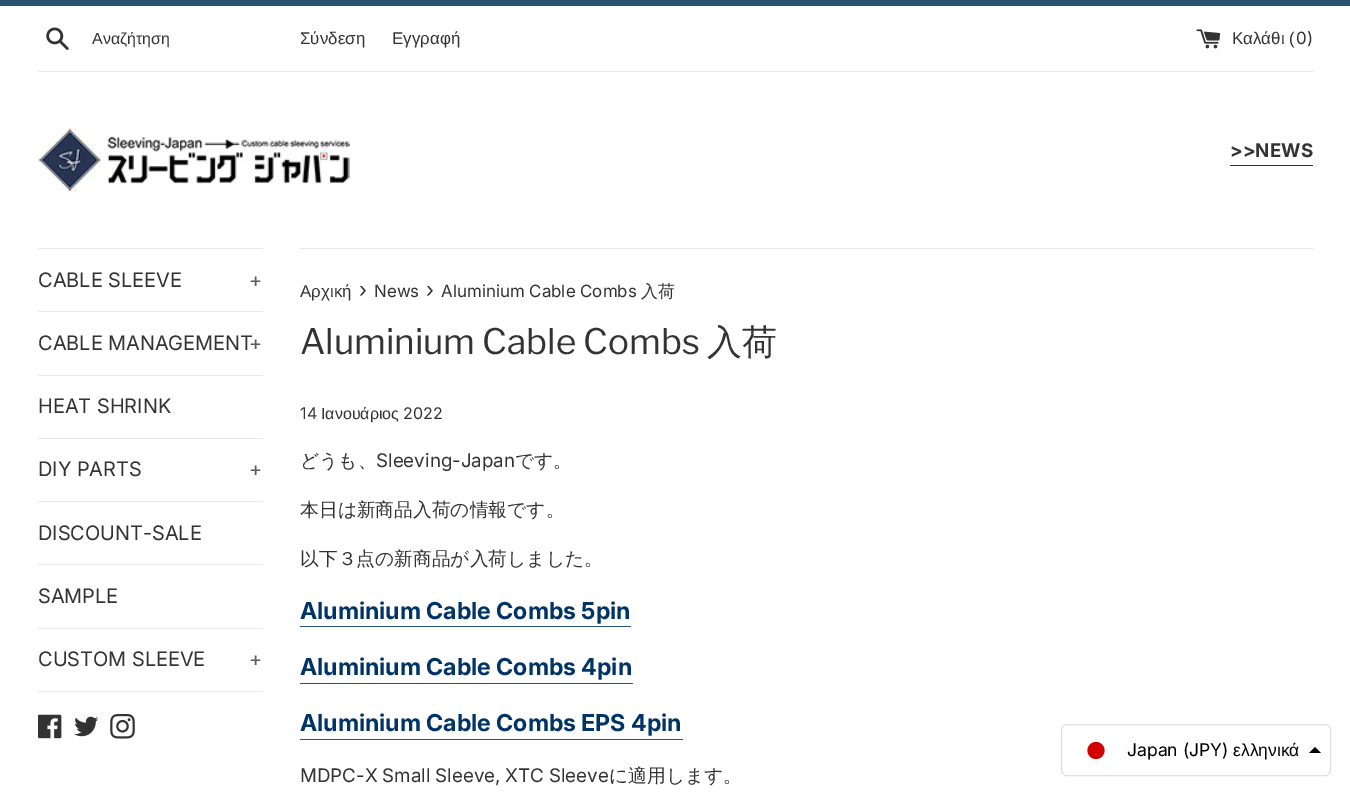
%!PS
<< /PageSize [1350 795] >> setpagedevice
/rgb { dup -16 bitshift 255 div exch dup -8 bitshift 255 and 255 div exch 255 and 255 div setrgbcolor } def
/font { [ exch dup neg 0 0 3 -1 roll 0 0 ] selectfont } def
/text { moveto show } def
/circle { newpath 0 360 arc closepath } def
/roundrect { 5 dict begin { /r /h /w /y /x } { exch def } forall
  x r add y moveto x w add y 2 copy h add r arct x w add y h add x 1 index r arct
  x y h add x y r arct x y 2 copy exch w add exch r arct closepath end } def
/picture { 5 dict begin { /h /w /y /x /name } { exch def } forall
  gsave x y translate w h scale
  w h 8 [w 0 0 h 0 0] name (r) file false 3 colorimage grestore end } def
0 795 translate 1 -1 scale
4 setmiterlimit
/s1 { /LiberationSans-Regular 16 font 16#333333 rgb } def
/s2 { /LiberationSans-Regular 16.9 font 16#333333 rgb } def
/s3 { /Inter-Regular 16.9 font 16#333333 rgb } def
/s4 { /Inter-Bold 18.75 font 16#333333 rgb } def
/s5 { /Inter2-Regular 20 font 16#333333 rgb } def
/s6 { /Inter2-Regular 20 font 16#5C5C5C rgb } def
/s7 { /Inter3-Regular 21 font 16#333333 rgb } def
/s8 { /WenQuanYiZenHei-Medium 16.9 font 16#333333 rgb } def
/s9 { /LibreFranklin-Regular 35 font 16#333333 rgb } def
/s10 { /WenQuanYiZenHei-Medium 35 font 16#333333 rgb } def
/s11 { /Inter-Regular 16 font 16#333333 rgb } def
/s12 { /WenQuanYiZenHei-Medium 18.75 font 16#333333 rgb } def
/s13 { /Inter-Regular 18.75 font 16#333333 rgb } def
/s14 { /Inter2-Bold 23.3 font 16#003366 rgb } def
/s15 { /Inter-Regular 17.5 font 16#000000 rgb } def
/s16 { /LiberationSans-Regular 17.5 font 16#000000 rgb } def
16#FFFFFF rgb
0 0 1350 795 rectfill
16#285470 rgb
0 0 1350 6 rectfill
(pic1.raw) 46 27 23 23 picture
s1
(Αναζήτηση) 92 44 text
s2
(Σύνδεση) 300 44 text
(Εγγραφή) 392 44 text
(pic2.raw) 1196 29 25 20 picture
(Καλάθι \() 1232 44 text
s3
(0\)) 1296 44 text
16#E8E8E8 rgb
38 71 1275 1 rectfill
(pic3.raw) 37 125 313 68 picture
s4
(>>NEWS) 1230 157 text
1230 165 83 1 rectfill
16#E8E8E8 rgb
38 248 225 1 rectfill
38 311 225 1 rectfill
s5
(CABLE SLEEVE) 38 287 text
s6
(+) 249 287 text
16#E8E8E8 rgb
38 375 225 1 rectfill
s5
(CABLE MANAGEMENT) 38 350 text
s6
(+) 249 350 text
16#E8E8E8 rgb
38 438 225 1 rectfill
s5
(HEAT SHRINK) 38 413 text
16#E8E8E8 rgb
38 501 225 1 rectfill
s5
(DIY PARTS) 38 476 text
s6
(+) 249 476 text
16#E8E8E8 rgb
38 564 225 1 rectfill
s5
(DISCOUNT-SALE) 38 540 text
16#E8E8E8 rgb
38 628 225 1 rectfill
s5
(SAMPLE) 38 603 text
16#E8E8E8 rgb
38 691 225 1 rectfill
s5
(CUSTOM SLEEVE) 38 666 text
s6
(+) 249 666 text
(pic4.raw) 38 714 24 25 picture
(pic5.raw) 74 716 24 21 picture
(pic6.raw) 110 714 25 25 picture
16#E8E8E8 rgb
300 248 1013 1 rectfill
s2
(Αρχική) 300 297 text
s7
(›) 359 297 text
s3
(News) 374 297 text
s7
(›) 426 297 text
s3
(Aluminium Cable Combs) 441 297 text
s8
(入荷) 641 297 text
s9
(Aluminium Cable Combs) 300 354 text
s10
(入荷) 707 354 text
s11
(14) 300 419 text
s1
(Ιανουάριος) 321 419 text
s11
(2022) 403 419 text
s12
(どうも、) 300 467 text
s13
(Sleeving-Japan) 376 467 text
s12
(です。) 515 467 text
(本日は新商品入荷の情報です。) 300 516 text
(以下３点の新商品が入荷しました。) 300 565 text
s14
(Aluminium Cable Combs 5pin) 300 619 text
16#285470 rgb
300 626 331 1 rectfill
s14
(Aluminium Cable Combs 4pin) 300 675 text
16#285470 rgb
300 683 333 1 rectfill
s14
(Aluminium Cable Combs EPS 4pin) 300 731 text
16#285470 rgb
300 739 383 1 rectfill
/Inter-Regular 18.75 font
16#333333 rgb
300 782 moveto -0.5 0 32 (MDPC-X Small Sleeve, XTC Sleeve) widthshow
s12
(に適用します。) 609 782 text
16#E0E0E0 rgb
1061.5 724.5 269 51 5.5 roundrect stroke
16#D30000 rgb
1096 750.5 8.5 circle fill
s15
(Japan \(JPY\)) 1127 756 text
s16
(ελληνικά) 1233 756 text
1309 753 moveto 1315 747 lineto 1321 753 lineto closepath eofill
showpage
